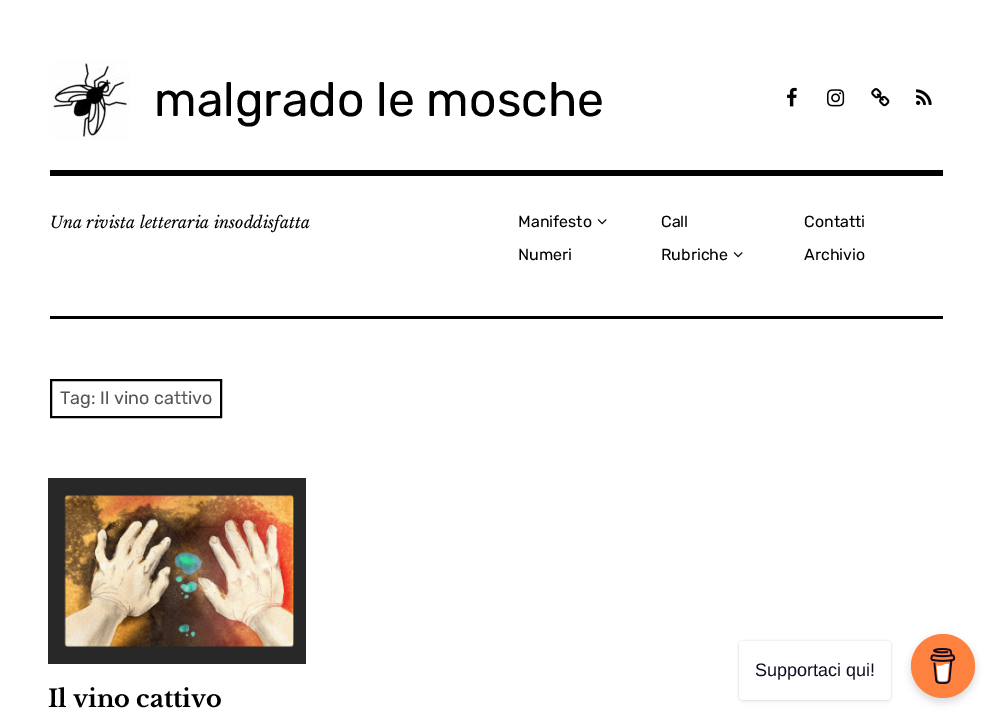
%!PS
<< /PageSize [993 716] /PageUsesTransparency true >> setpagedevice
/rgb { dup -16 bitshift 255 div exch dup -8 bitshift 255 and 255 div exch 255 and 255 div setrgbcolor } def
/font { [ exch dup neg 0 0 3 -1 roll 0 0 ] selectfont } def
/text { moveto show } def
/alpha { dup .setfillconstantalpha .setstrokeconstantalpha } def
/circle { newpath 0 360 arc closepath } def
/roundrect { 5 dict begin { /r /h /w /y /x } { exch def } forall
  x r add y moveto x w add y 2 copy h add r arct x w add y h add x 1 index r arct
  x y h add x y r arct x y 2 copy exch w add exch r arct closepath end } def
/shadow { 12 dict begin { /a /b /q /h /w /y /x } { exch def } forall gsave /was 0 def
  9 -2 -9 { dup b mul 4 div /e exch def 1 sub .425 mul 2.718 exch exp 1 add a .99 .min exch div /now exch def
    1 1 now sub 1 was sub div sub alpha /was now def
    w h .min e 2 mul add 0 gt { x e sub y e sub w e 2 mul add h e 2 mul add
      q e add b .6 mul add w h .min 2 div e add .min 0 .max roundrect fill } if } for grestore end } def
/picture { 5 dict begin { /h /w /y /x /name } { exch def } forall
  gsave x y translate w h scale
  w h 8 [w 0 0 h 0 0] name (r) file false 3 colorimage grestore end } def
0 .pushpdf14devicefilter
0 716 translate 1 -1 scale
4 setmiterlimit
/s1 { /Rubik-Regular 48 font 16#000000 rgb } def
/s2 { /LibreBaskerville-Italic 16 font 16#000000 rgb } def
/s3 { /Rubik-Regular 16 font 16#000000 rgb } def
/s4 { /Rubik-Regular 18 font 16#555555 rgb } def
/s5 { /LibreBaskerville-Bold 24 font 16#000000 rgb } def
/s6 { /LiberationSans-Regular 18 font 16#0D0C22 rgb } def
16#FFFFFF rgb
0 0 993 716 rectfill
16#000000 rgb
50 170 893 6 rectfill
(pic1.raw) 50 60 80 80 picture
s1
(malgrado le mosche) 154 116 text
(pic2.raw) 787 87 10 20 picture
(pic3.raw) 827 89 18 18 picture
(pic4.raw) 871 88 19 19 picture
(pic5.raw) 916 89 16 16 picture
s2
(Una rivista letteraria insoddisfatta) 50 228 text
s3
(Manifesto) 518 227 text
(pic6.raw) 597 219 10 6 picture
(Numeri) 518 260 text
(Call) 661 227 text
(Rubriche) 661 260 text
(pic6.raw) 733 252 10 6 picture
(Contatti) 804 227 text
(Archivio) 804 260 text
50 316 893 3 rectfill
2 setlinewidth
51 380 170 37 rectstroke
s4
(Tag: Il vino cattivo) 60 404 text
(pic7.raw) 48 478 258 186 picture
s5
(Il vino cattivo) 48 707 text
911 638 64 64 32 4 0.15 shadow
16#FF813F rgb
943 666 32 circle fill
(pic8.raw) 930 648 26 36 picture
16#000000 rgb
739 641 152 59 4 1 0.15 shadow
739 643 152 59 4 2.5 0.05 shadow
16#FFFFFF rgb
739 641 152 59 4 roundrect fill
s6
(Supportaci qui!) 755 676 text
.poppdf14devicefilter showpage
